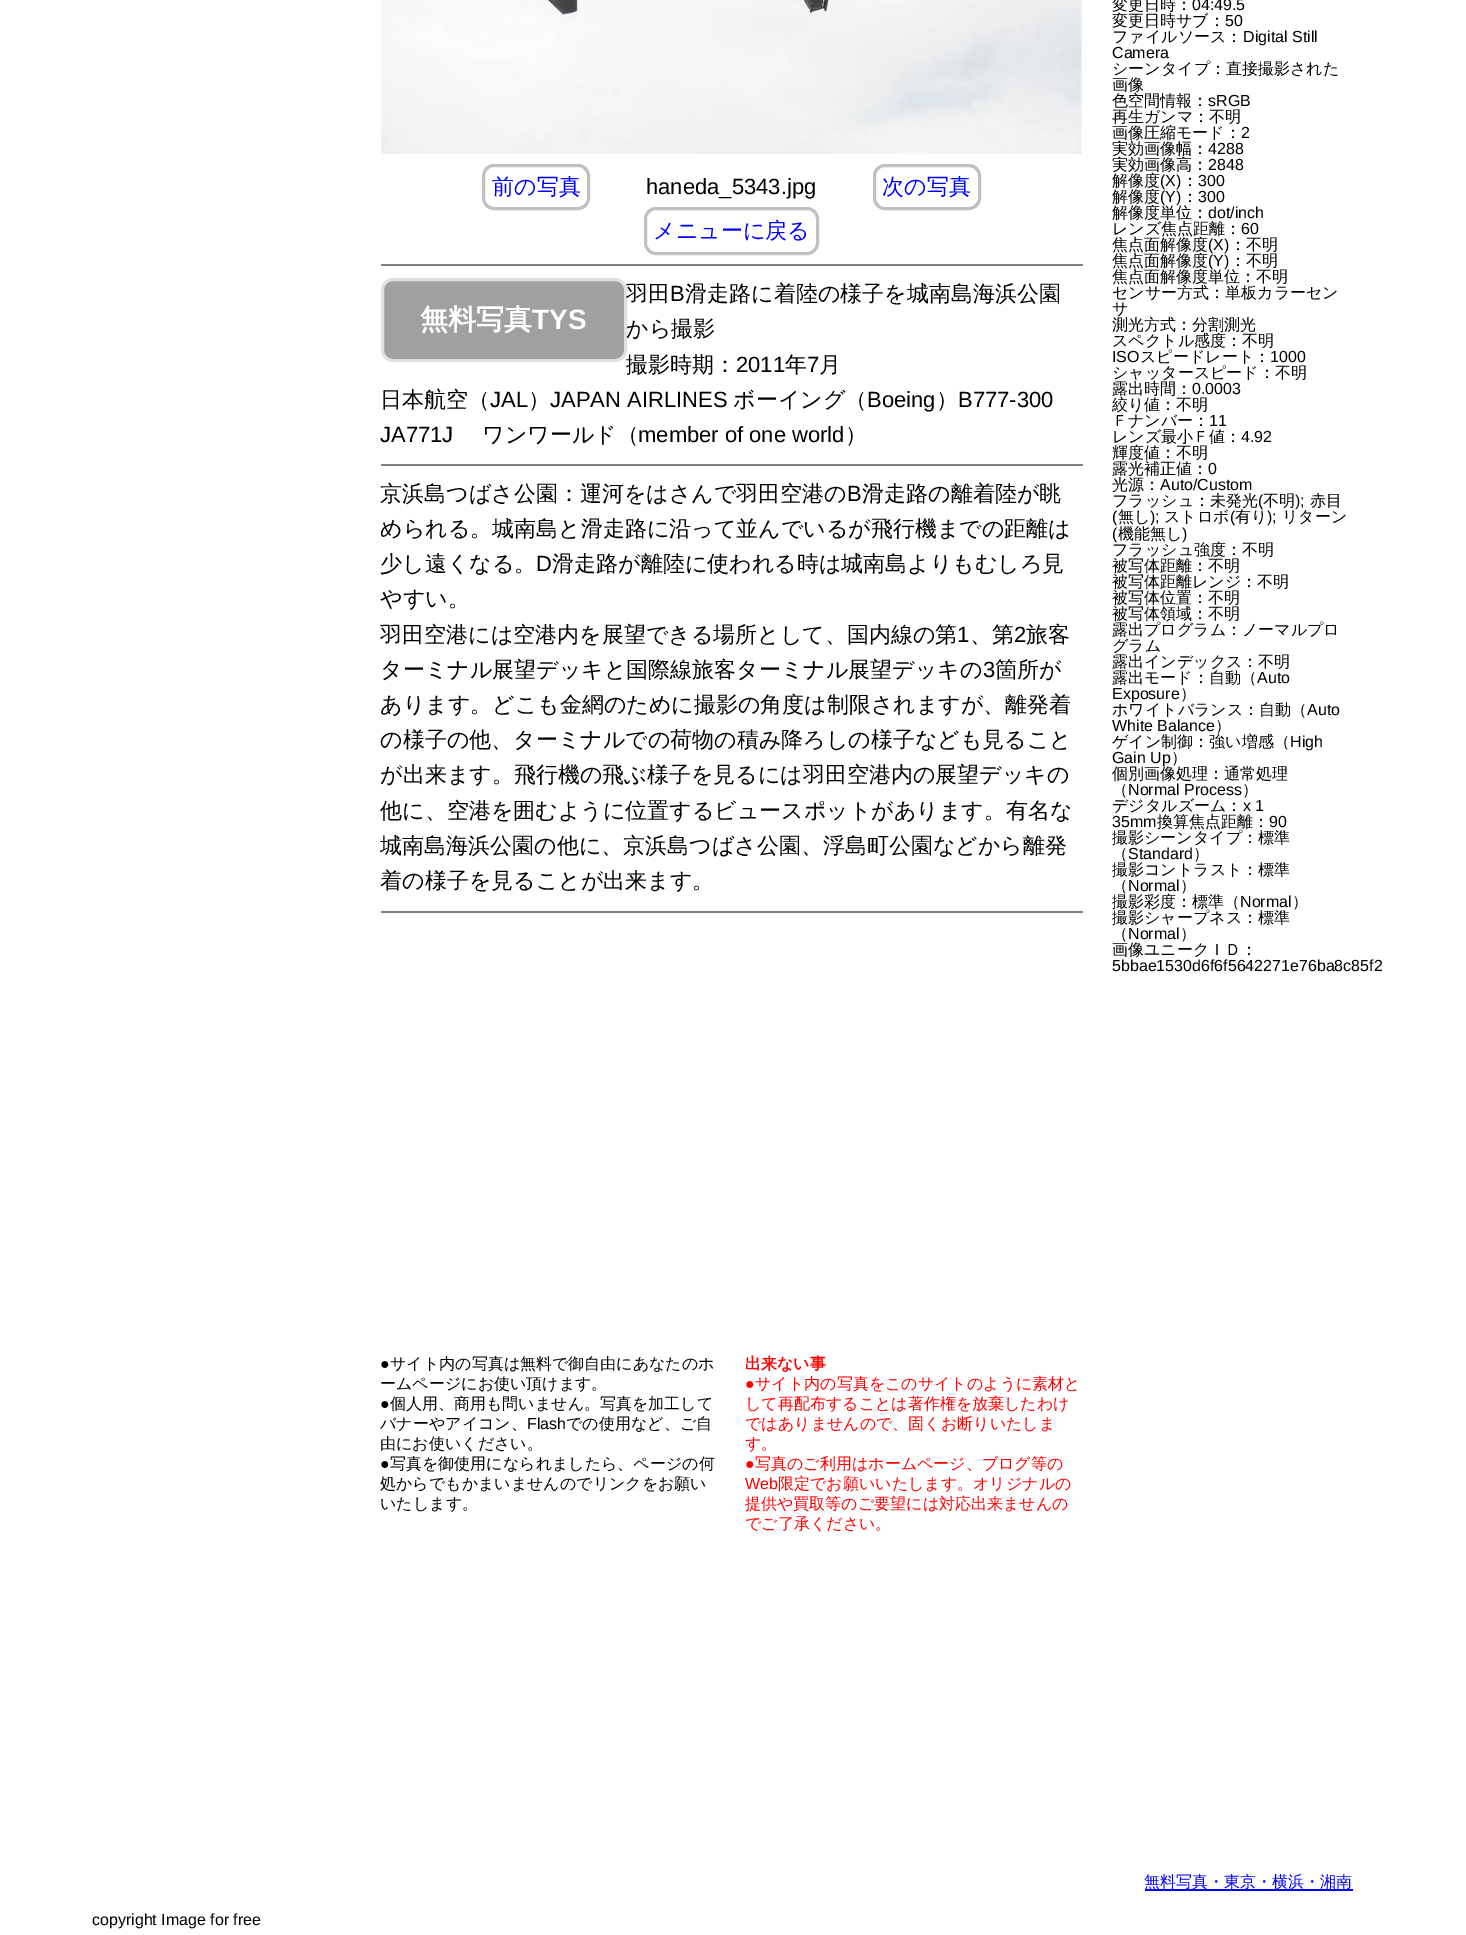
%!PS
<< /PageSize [1466 1935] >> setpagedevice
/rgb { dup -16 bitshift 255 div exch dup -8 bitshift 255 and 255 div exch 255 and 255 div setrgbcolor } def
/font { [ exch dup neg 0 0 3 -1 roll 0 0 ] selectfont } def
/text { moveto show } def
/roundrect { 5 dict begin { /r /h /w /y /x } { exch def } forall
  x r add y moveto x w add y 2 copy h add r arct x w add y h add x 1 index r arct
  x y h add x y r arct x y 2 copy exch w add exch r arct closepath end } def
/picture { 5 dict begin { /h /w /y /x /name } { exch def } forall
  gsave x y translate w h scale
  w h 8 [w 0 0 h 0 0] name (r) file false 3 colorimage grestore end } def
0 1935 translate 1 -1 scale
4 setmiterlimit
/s1 { /WenQuanYiZenHei-Medium 22 font 16#0000FF rgb } def
/s2 { /LiberationSans-Regular 22 font 16#000000 rgb } def
/s3 { /WenQuanYiZenHei-Medium 22 font 16#000000 rgb } def
/s4 { /WenQuanYiZenHei-Bold 28 font 16#FFFFFF rgb } def
/s5 { /LiberationSans-Bold 28 font 16#FFFFFF rgb } def
/s6 { /LiberationSans-Regular 16 font 16#000000 rgb } def
/s7 { /WenQuanYiZenHei-Medium 16 font 16#000000 rgb } def
/s8 { /WenQuanYiZenHei-Bold 16 font 16#FF0000 rgb } def
/s9 { /LiberationSans-Regular 16 font 16#FF0000 rgb } def
/s10 { /WenQuanYiZenHei-Medium 16 font 16#FF0000 rgb } def
/s11 { /WenQuanYiZenHei-Medium 16 font 16#0000FF rgb } def
16#FFFFFF rgb
0 0 1466 1935 rectfill
(pic1.raw) 381 0 701 154 picture
16#C0C0C0 rgb
3 setlinewidth
483.5 165.5 105 43 10.5 roundrect stroke
s1
(前の写真) 492 194 text
s2
(haneda_5343.jpg) 646 194 text
16#C0C0C0 rgb
874.5 165.5 105 43 10.5 roundrect stroke
s1
(次の写真) 882 194 text
16#C0C0C0 rgb
645.5 208.5 172 45 10.5 roundrect stroke
s1
(メニューに戻る) 653 238 text
16#808080 rgb
381 264 702 2 rectfill
16#A0A0A0 rgb
382.5 279.5 243 81 10.5 roundrect gsave fill grestore
16#E0E0E0 rgb
stroke
s3
(羽田) 626 301 text
s2
(B) 670 301 text
s3
(滑走路に着陸の様子を城南島海浜公園) 685 301 text
s4
(無料写真) 420 329 text
s5
(TYS) 532 329 text
s3
(から撮影) 626 336 text
(撮影時期：) 626 372 text
s2
(2011) 736 372 text
s3
(年) 785 372 text
s2
(7) 807 372 text
s3
(月) 819 372 text
(日本航空（) 380 407 text
s2
(JAL) 490 407 text
s3
(）) 528 407 text
s2
(JAPAN AIRLINES) 550 407 text
s3
(ボーイング（) 733 407 text
s2
(Boeing) 867 407 text
s3
(）) 936 407 text
s2
(B777-300) 958 407 text
(JA771J) 380 442 text
s3
(ワンワールド（) 482 442 text
s2
(member of one world) 638 442 text
s3
(）) 845 442 text
16#808080 rgb
381 464 702 2 rectfill
s3
(京浜島つばさ公園：運河をはさんで羽田空港の) 380 501 text
s2
(B) 847 501 text
s3
(滑走路の離着陸が眺) 862 501 text
(められる。城南島と滑走路に沿って並んでいるが飛行機までの距離は) 380 536 text
(少し遠くなる。) 380 571 text
s2
(D) 536 571 text
s3
(滑走路が離陸に使われる時は城南島よりもむしろ見) 552 571 text
(やすい。) 380 606 text
(羽田空港には空港内を展望できる場所として、国内線の第) 380 642 text
s2
(1) 957 642 text
s3
(、第) 970 642 text
s2
(2) 1014 642 text
s3
(旅客) 1026 642 text
(ターミナル展望デッキと国際線旅客ターミナル展望デッキの) 380 677 text
s2
(3) 983 677 text
s3
(箇所が) 995 677 text
(あります。どこも金網のために撮影の角度は制限されますが、離発着) 380 712 text
(の様子の他、ターミナルでの荷物の積み降ろしの様子なども見ること) 380 747 text
(が出来ます。飛行機の飛ぶ様子を見るには羽田空港内の展望デッキの) 380 782 text
(他に、空港を囲むように位置するビュースポットがあります。有名な) 380 818 text
(城南島海浜公園の他に、京浜島つばさ公園、浮島町公園などから離発) 380 853 text
(着の様子を見ることが出来ます。) 380 888 text
16#808080 rgb
381 911 702 2 rectfill
s6
(●) 380 1369 text
s7
(サイト内の写真は無料で御自由にあなたのホ) 390 1369 text
(ームページにお使い頂けます。) 380 1389 text
s6
(●) 380 1409 text
s7
(個人用、商用も問いません。写真を加工して) 390 1409 text
(バナーやアイコン、) 380 1429 text
s6
(Flash) 527 1429 text
s7
(での使用など、ご自) 566 1429 text
(由にお使いください。) 380 1449 text
s6
(●) 380 1469 text
s7
(写真を御使用になられましたら、ページの何) 390 1469 text
(処からでもかまいませんのでリンクをお願い) 380 1489 text
(いたします。) 380 1509 text
s8
(出来ない事) 745 1369 text
s9
(●) 745 1389 text
s10
(サイト内の写真をこのサイトのように素材と) 755 1389 text
(して再配布することは著作権を放棄したわけ) 745 1409 text
(ではありませんので、固くお断りいたしま) 745 1429 text
(す。) 745 1449 text
s9
(●) 745 1469 text
s10
(写真のご利用はホームページ、ブログ等の) 755 1469 text
s9
(Web) 745 1489 text
s10
(限定でお願いいたします。オリジナルの) 778 1489 text
(提供や買取等のご要望には対応出来ませんの) 745 1509 text
(でご了承ください。) 745 1529 text
s7
(変更日時：) 1112 10 text
s6
(04:49.5) 1192 10 text
s7
(変更日時サブ：) 1112 26 text
s6
(50) 1225 26 text
s7
(ファイルソース：) 1112 42 text
s6
(Digital Still) 1243 42 text
(Camera) 1112 58 text
s7
(シーンタイプ：直接撮影された) 1112 74 text
(画像) 1112 90 text
(色空間情報：) 1112 106 text
s6
(sRGB) 1208 106 text
s7
(再生ガンマ：不明) 1112 122 text
(画像圧縮モード：) 1112 138 text
s6
(2) 1241 138 text
s7
(実効画像幅：) 1112 154 text
s6
(4288) 1208 154 text
s7
(実効画像高：) 1112 170 text
s6
(2848) 1208 170 text
s7
(解像度) 1112 186 text
s6
(\(X\)) 1160 186 text
s7
(：) 1182 186 text
s6
(300) 1198 186 text
s7
(解像度) 1112 202 text
s6
(\(Y\)) 1160 202 text
s7
(：) 1182 202 text
s6
(300) 1198 202 text
s7
(解像度単位：) 1112 218 text
s6
(dot/inch) 1208 218 text
s7
(レンズ焦点距離：) 1112 234 text
s6
(60) 1241 234 text
s7
(焦点面解像度) 1112 250 text
s6
(\(X\)) 1208 250 text
s7
(：不明) 1230 250 text
(焦点面解像度) 1112 266 text
s6
(\(Y\)) 1208 266 text
s7
(：不明) 1230 266 text
(焦点面解像度単位：不明) 1112 282 text
(センサー方式：単板カラーセン) 1112 298 text
(サ) 1112 314 text
(測光方式：分割測光) 1112 330 text
(スペクトル感度：不明) 1112 346 text
s6
(ISO) 1112 362 text
s7
(スピードレート：) 1140 362 text
s6
(1000) 1270 362 text
s7
(シャッタースピード：不明) 1112 378 text
(露出時間：) 1112 394 text
s6
(0.0003) 1192 394 text
s7
(絞り値：不明) 1112 410 text
(Ｆナンバー：) 1112 426 text
s6
(11) 1209 426 text
s7
(レンズ最小Ｆ値：) 1112 442 text
s6
(4.92) 1241 442 text
s7
(輝度値：不明) 1112 458 text
(露光補正値：) 1112 474 text
s6
(0) 1208 474 text
s7
(光源：) 1112 490 text
s6
(Auto/Custom) 1160 490 text
s7
(フラッシュ：未発光) 1112 506 text
s6
(\() 1258 506 text
s7
(不明) 1263 506 text
s6
(\);) 1295 506 text
s7
(赤目) 1310 506 text
s6
(\() 1112 522 text
s7
(無し) 1118 522 text
s6
(\);) 1150 522 text
s7
(ストロボ) 1164 522 text
s6
(\() 1230 522 text
s7
(有り) 1235 522 text
s6
(\);) 1267 522 text
s7
(リターン) 1282 522 text
s6
(\() 1112 539 text
s7
(機能無し) 1118 539 text
s6
(\)) 1182 539 text
s7
(フラッシュ強度：不明) 1112 555 text
(被写体距離：不明) 1112 571 text
(被写体距離レンジ：不明) 1112 587 text
(被写体位置：不明) 1112 603 text
(被写体領域：不明) 1112 619 text
(露出プログラム：ノーマルプロ) 1112 635 text
(グラム) 1112 651 text
(露出インデックス：不明) 1112 667 text
(露出モード：自動（) 1112 683 text
s6
(Auto) 1257 683 text
(Exposure) 1112 699 text
s7
(）) 1180 699 text
(ホワイトバランス：自動（) 1112 715 text
s6
(Auto) 1307 715 text
(White Balance) 1112 731 text
s7
(）) 1215 731 text
(ゲイン制御：強い増感（) 1112 747 text
s6
(High) 1290 747 text
(Gain Up) 1112 763 text
s7
(）) 1171 763 text
(個別画像処理：通常処理) 1112 779 text
(（) 1112 795 text
s6
(Normal Process) 1128 795 text
s7
(）) 1242 795 text
(デジタルズーム：) 1112 811 text
s6
(x 1) 1243 811 text
(35mm) 1112 827 text
s7
(換算焦点距離：) 1157 827 text
s6
(90) 1269 827 text
s7
(撮影シーンタイプ：標準) 1112 843 text
(（) 1112 859 text
s6
(Standard) 1128 859 text
s7
(）) 1193 859 text
(撮影コントラスト：標準) 1112 875 text
(（) 1112 891 text
s6
(Normal) 1128 891 text
s7
(）) 1180 891 text
(撮影彩度：標準（) 1112 907 text
s6
(Normal) 1240 907 text
s7
(）) 1292 907 text
(撮影シャープネス：標準) 1112 923 text
(（) 1112 939 text
s6
(Normal) 1128 939 text
s7
(）) 1180 939 text
(画像ユニークＩＤ：) 1112 955 text
s6
(5bbae1530d6f6f5642271e76ba8c85f2) 1112 971 text
16#0000FF rgb
1145 1889 208 2 rectfill
s11
(無料写真・東京・横浜・湘南) 1144 1887 text
s6
(copyright Image for free) 92 1925 text
showpage
